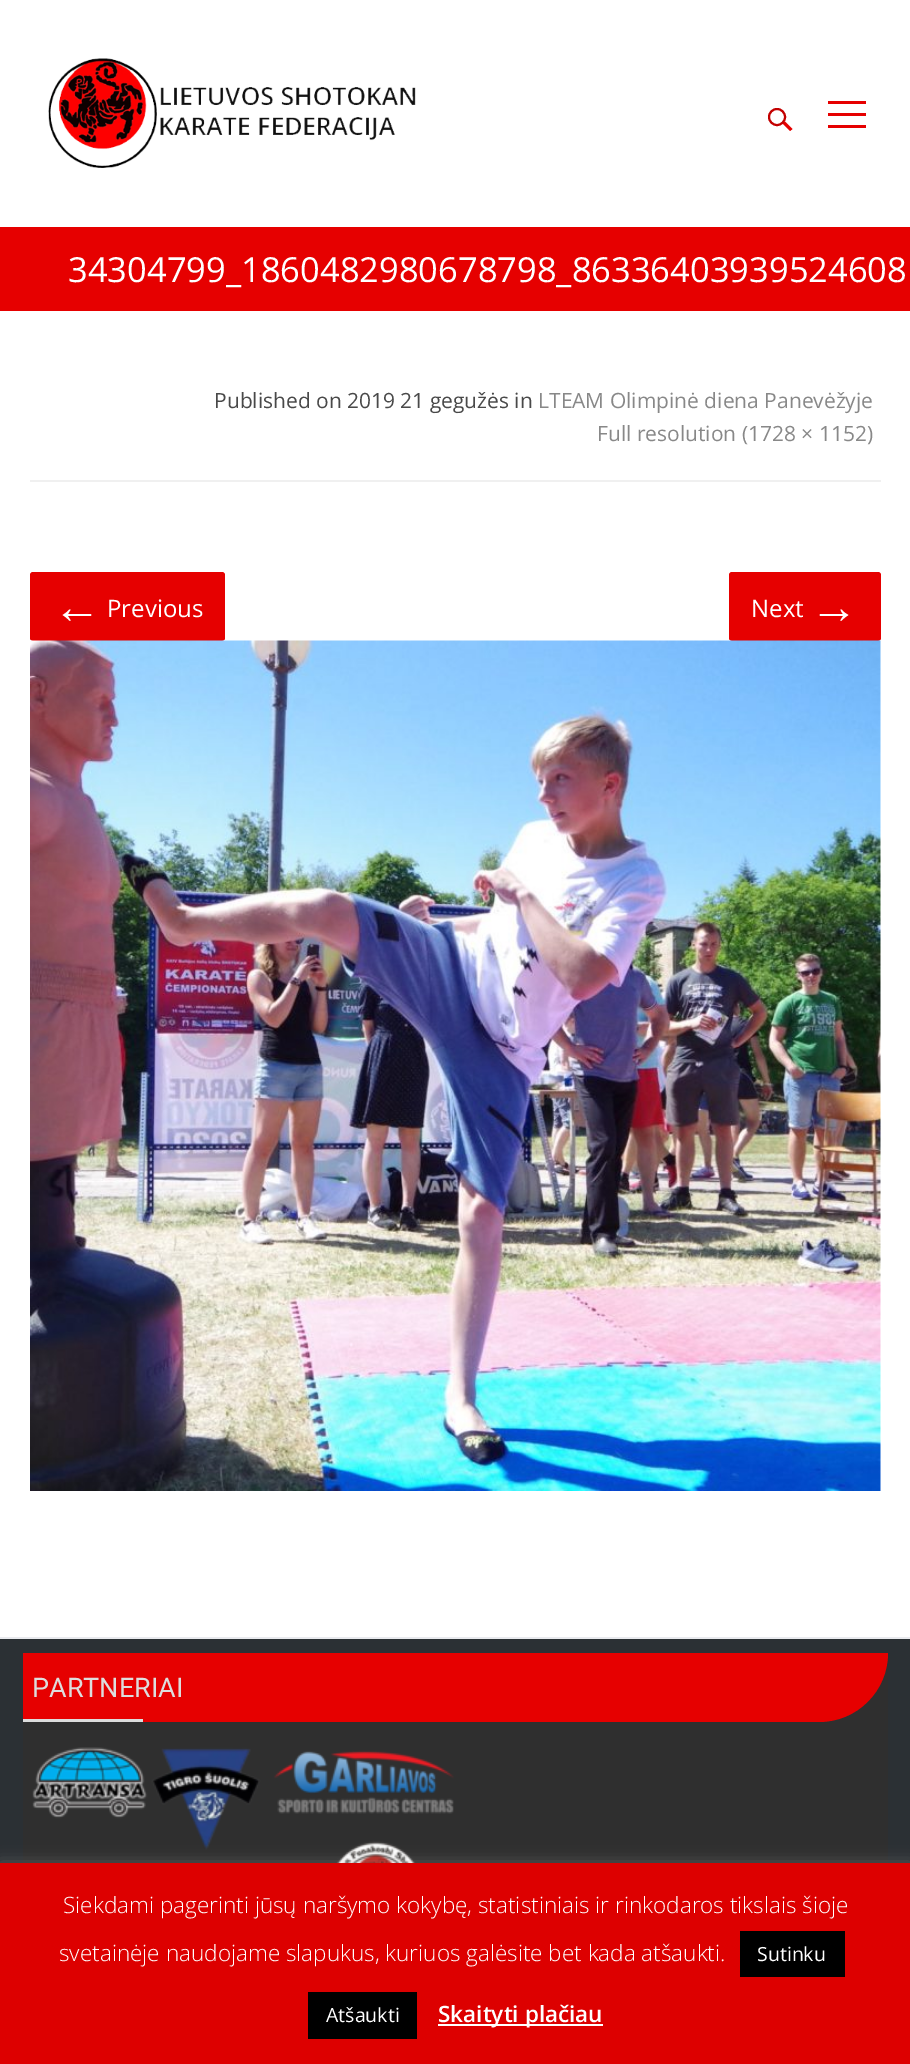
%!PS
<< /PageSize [910 2064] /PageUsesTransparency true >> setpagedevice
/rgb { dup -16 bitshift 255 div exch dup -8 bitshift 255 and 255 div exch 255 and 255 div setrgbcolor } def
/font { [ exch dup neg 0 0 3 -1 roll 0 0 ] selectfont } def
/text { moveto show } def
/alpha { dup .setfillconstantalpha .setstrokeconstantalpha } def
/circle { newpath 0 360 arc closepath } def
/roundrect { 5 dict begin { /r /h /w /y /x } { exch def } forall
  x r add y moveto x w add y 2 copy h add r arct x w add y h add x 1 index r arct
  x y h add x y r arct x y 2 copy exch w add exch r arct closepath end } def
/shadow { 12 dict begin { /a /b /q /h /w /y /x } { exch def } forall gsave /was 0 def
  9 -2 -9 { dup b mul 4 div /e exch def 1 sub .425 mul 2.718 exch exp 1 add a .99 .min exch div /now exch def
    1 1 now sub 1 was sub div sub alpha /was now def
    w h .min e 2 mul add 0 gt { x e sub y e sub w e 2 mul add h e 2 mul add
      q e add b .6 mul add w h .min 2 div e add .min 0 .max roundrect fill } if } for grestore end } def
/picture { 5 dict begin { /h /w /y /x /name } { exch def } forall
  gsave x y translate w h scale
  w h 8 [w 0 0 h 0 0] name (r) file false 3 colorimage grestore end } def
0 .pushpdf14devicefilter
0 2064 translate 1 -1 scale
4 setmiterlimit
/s1 { /OpenSans-Regular 34.5 font 16#FFFFFF rgb } def
/s2 { /OpenSans-Regular 21 font 16#494949 rgb } def
/s3 { /OpenSans-Regular 21 font 16#888888 rgb } def
/s4 { /LiberationSerif-Regular 48 font 16#FFFFFF rgb } def
/s5 { /OpenSans-Regular 24 font 16#FFFFFF rgb } def
/s6 { /Roboto-Regular 27 font 16#DDDDDD rgb } def
/s7 { /OpenSans-Light 22.5 font 16#FFFFFF rgb } def
/s8 { /OpenSans-Regular 19.5 font 16#FFFFFF rgb } def
/s9 { /OpenSans-SemiBold 22.5 font 16#FFFFFF rgb } def
16#FFFFFF rgb
0 0 910 2064 rectfill
(pic1.raw) 48 58 368 110 picture
16#E60000 rgb
782.5 123.5 moveto 785 121.5 lineto 792.5 129 lineto 790 131 lineto closepath fill
16#C30000 rgb
2 setlinewidth
777 117 8 circle stroke
16#E60000 rgb
828 101 38 3 rectfill
828 113 38 3 rectfill
828 125 38 3 rectfill
0 227 910 84 rectfill
s1
(34304799_1860482980678798_86336403939524608) 68 282 text
16#F0F0F0 rgb
30 480 851 2 rectfill
s2
(Published on 2019 21 gegužės in) 214 408 text
s3
(LTEAM Olimpinė diena Panevėžyje) 538 408 text
(Full resolution \(1728 × 1152\)) 597 441 text
16#E60000 rgb
30 572 195 69 3 roundrect fill
s4
(←) 53 623 text
s5
(Previous) 107 617 text
16#E60000 rgb
729 572 152 69 3 roundrect fill
s5
(Next) 751 617 text
s4
(→) 810 623 text
(pic2.raw) 30 640 851 851 picture
16#2B3034 rgb
0 1639 910 224 rectfill
16#E9EAEE rgb
0 1637 910 2 rectfill
16#2F2F2F rgb
23 1653 865 210 rectfill
16#E60000 rgb
23 1653 moveto 888 1653 lineto 888 1691 857 1722 819 1722 curveto 23 1722 lineto closepath fill
s6
(PARTNERIAI) 32 1697 text
23 1719 120 3 rectfill
(pic3.raw) 32 1747 422 116 picture
16#ACABAB rgb
0 1862 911 201 0 7.5 0.3 shadow
16#DD0000 rgb
0 1863 910 201 rectfill
s7
(Siekdami pagerinti jūsų naršymo kokybę, statistiniais ir rinkodaros tikslais šioje) 63 1913 text
(svetainėje naudojame slapukus, kuriuos galėsite bet kada atšaukti.) 59 1961 text
16#000000 rgb
740 1931 105 46 rectfill
s8
(Sutinku) 757 1961 text
16#000000 rgb
308 1992 109 47 rectfill
s8
(Atšaukti) 326 2022 text
438 2024 165 2 rectfill
s9
(Skaityti plačiau) 438 2022 text
.poppdf14devicefilter showpage
